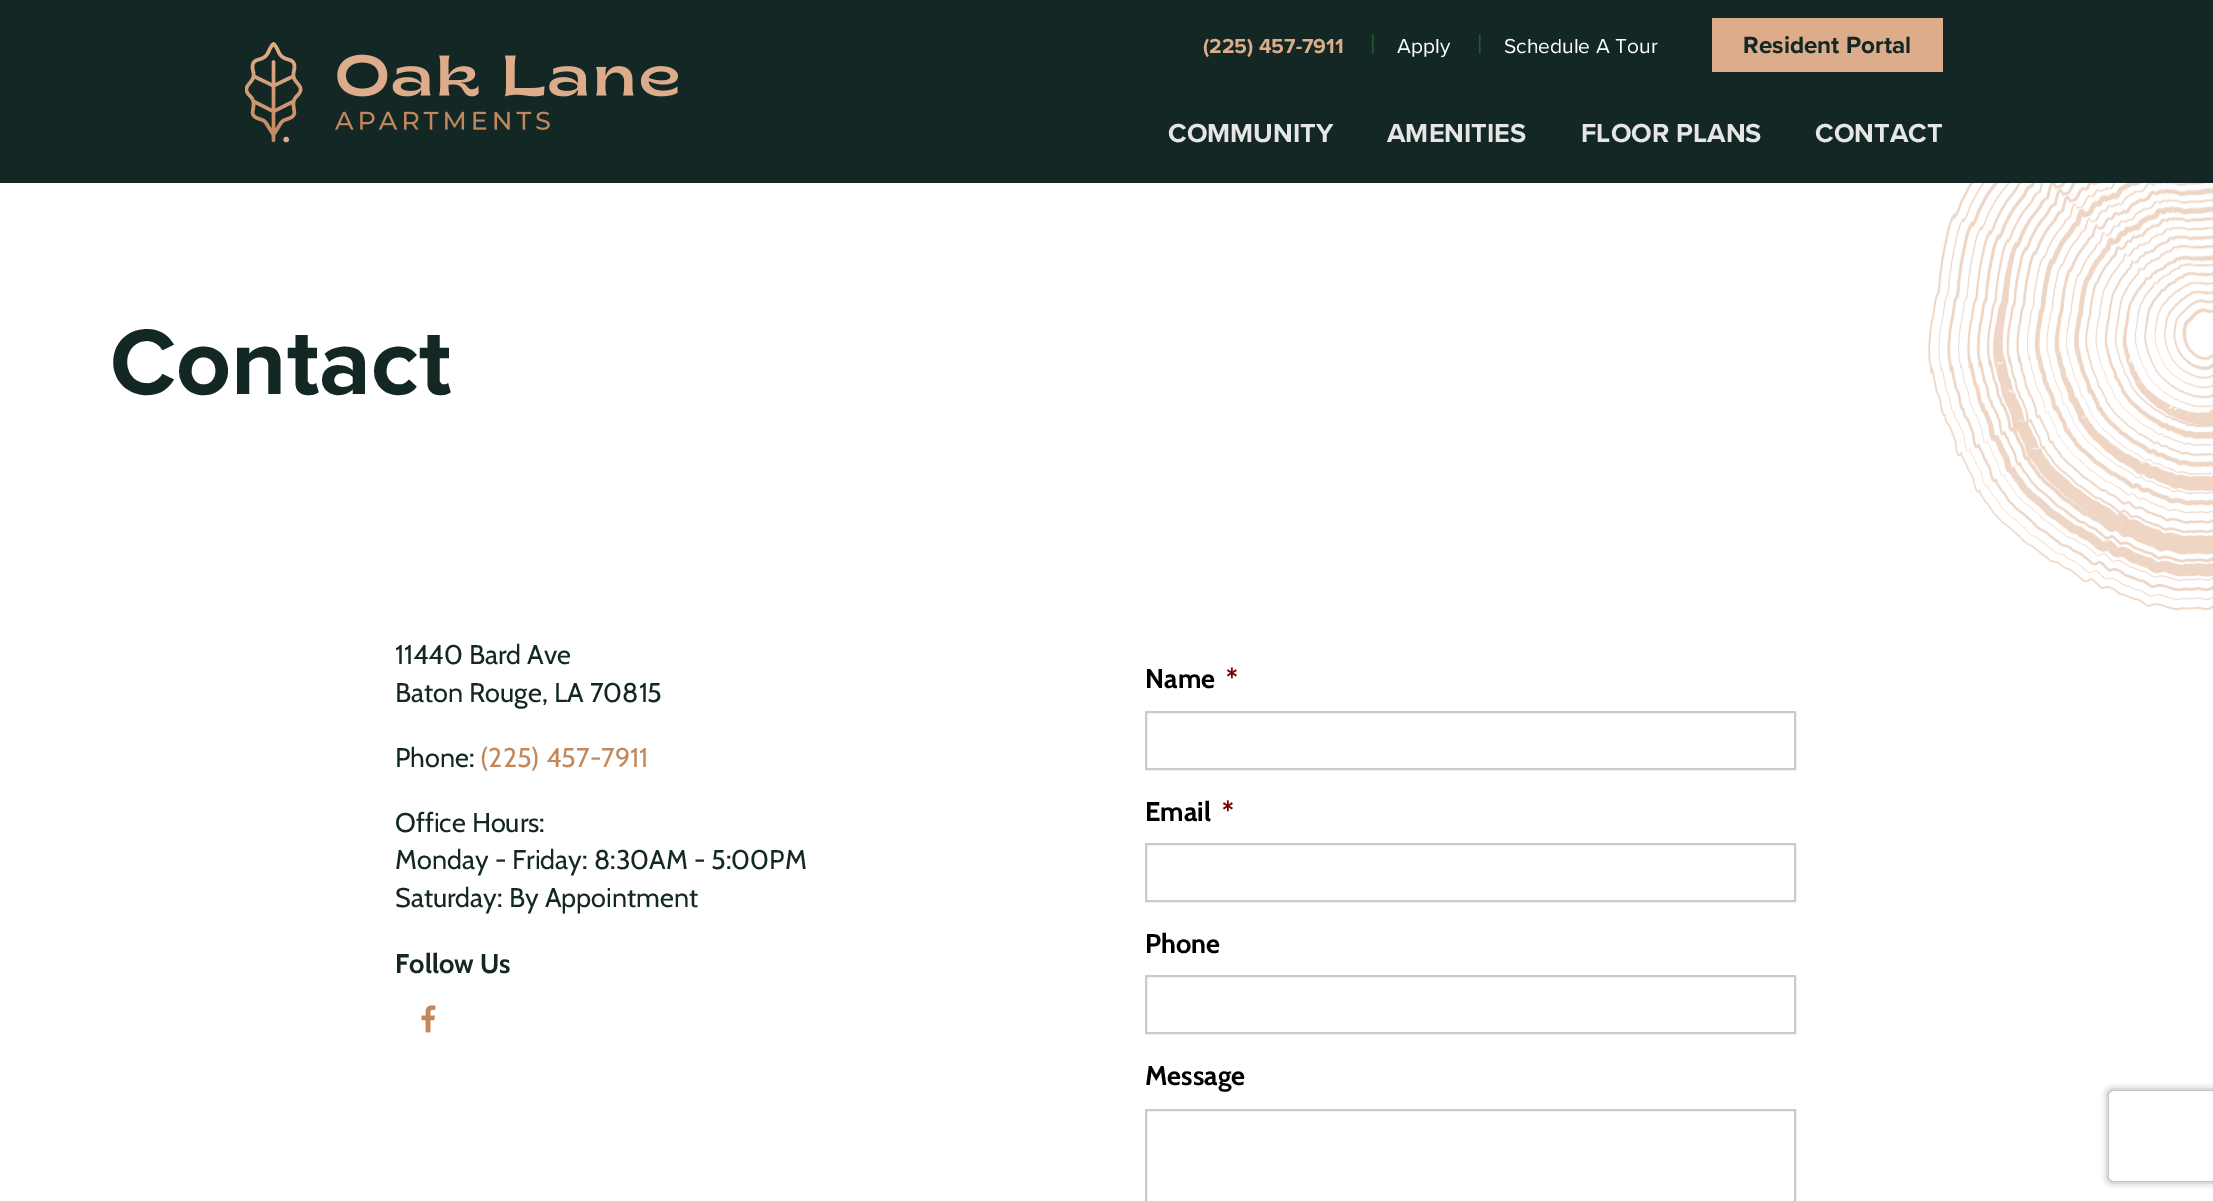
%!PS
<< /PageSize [2213 1201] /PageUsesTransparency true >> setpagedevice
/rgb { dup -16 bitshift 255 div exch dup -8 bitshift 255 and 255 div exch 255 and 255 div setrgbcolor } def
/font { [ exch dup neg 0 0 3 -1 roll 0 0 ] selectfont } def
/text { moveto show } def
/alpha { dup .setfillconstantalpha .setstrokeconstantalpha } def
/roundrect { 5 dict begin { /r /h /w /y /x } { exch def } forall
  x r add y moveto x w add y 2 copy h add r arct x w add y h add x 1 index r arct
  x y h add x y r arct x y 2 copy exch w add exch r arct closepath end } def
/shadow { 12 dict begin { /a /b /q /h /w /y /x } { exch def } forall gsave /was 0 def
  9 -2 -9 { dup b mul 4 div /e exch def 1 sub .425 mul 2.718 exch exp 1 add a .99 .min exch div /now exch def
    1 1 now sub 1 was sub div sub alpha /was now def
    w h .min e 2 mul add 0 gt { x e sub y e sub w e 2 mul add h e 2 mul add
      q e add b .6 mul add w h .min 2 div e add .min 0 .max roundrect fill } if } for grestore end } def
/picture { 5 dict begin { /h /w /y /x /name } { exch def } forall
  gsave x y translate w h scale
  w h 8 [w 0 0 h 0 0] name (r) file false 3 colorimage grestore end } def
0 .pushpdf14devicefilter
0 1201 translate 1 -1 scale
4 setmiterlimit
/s1 { /ProximaNova-Bold 21 font 16#DDAC8A rgb } def
/s2 { /ProximaNova-Regular 27 font 16#26592E rgb } def
/s3 { /ProximaNova-Regular 21 font 16#FFFFFF rgb } def
/s4 { /ProximaNova-Bold 24.25 font 16#132725 rgb } def
/s5 { /ProximaNova-Bold 27 font 16#E6E6E6 rgb } def
/s6 { /ProximaNova-Bold 96 font 16#132725 rgb } def
/s7 { /Cabin-Regular 27 font 16#132725 rgb } def
/s8 { /Cabin-Regular 27 font 16#C2885C rgb } def
/s9 { /Cabin-Bold 27 font 16#132725 rgb } def
/s10 { /Cabin-Bold 27 font 16#000000 rgb } def
/s11 { /Cabin-Bold 27 font 16#790000 rgb } def
16#FFFFFF rgb
0 0 2213 1201 rectfill
16#132725 rgb
0 0 2213 183 rectfill
(pic1.raw) 245 42 433 101 picture
s1
(\(225\) 457-7911) 1203 53 text
s2
(|) 1370 53 text
s3
(Apply) 1397 53 text
s2
(|) 1477 53 text
s3
(Schedule A Tour) 1504 53 text
16#DDAC8A rgb
1712 18 231 54 rectfill
s4
(Resident Portal) 1743 53 text
s5
(COMMUNITY) 1168 142 text
(AMENITIES) 1387 142 text
(FLOOR PLANS) 1581 142 text
(CONTACT) 1815 142 text
(pic2.raw) 1928 183 285 428 picture
s6
(Contact) 110 394 text
s7
(11440 Bard Ave) 395 664 text
(Baton Rouge, LA 70815) 395 702 text
(Phone:) 395 767 text
s8
(\(225\) 457-7911) 480 767 text
s7
(Office Hours:) 395 832 text
(Monday - Friday: 8:30AM - 5:00PM) 395 869 text
(Saturday: By Appointment) 395 907 text
s9
(Follow Us) 395 973 text
(pic3.raw) 421 1005 15 28 picture
s10
(Name) 1145 688 text
s11
(*) 1226 688 text
16#CACACA rgb
2 setlinewidth
1146 712 649 57 rectstroke
s10
(Email) 1145 821 text
s11
(*) 1222 821 text
16#CACACA rgb
1146 844 649 57 rectstroke
s10
(Phone) 1145 953 text
16#CACACA rgb
1146 976 649 57 rectstroke
s10
(Message) 1145 1085 text
16#CACACA rgb
1146 1110 649 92 rectstroke
gsave
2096 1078 moveto 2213 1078 lineto 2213 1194 lineto 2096 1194 lineto closepath 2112 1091 moveto 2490 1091 lineto 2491.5 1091 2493 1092.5 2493 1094 curveto 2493 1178 lineto 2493 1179.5 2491.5 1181 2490 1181 curveto 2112 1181 lineto 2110.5 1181 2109 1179.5 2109 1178 curveto 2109 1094 lineto 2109 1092.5 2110.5 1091 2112 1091 curveto closepath eoclip newpath
16#808080 rgb
2109 1091 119 90 3 4 1 shadow
grestore
.poppdf14devicefilter showpage
